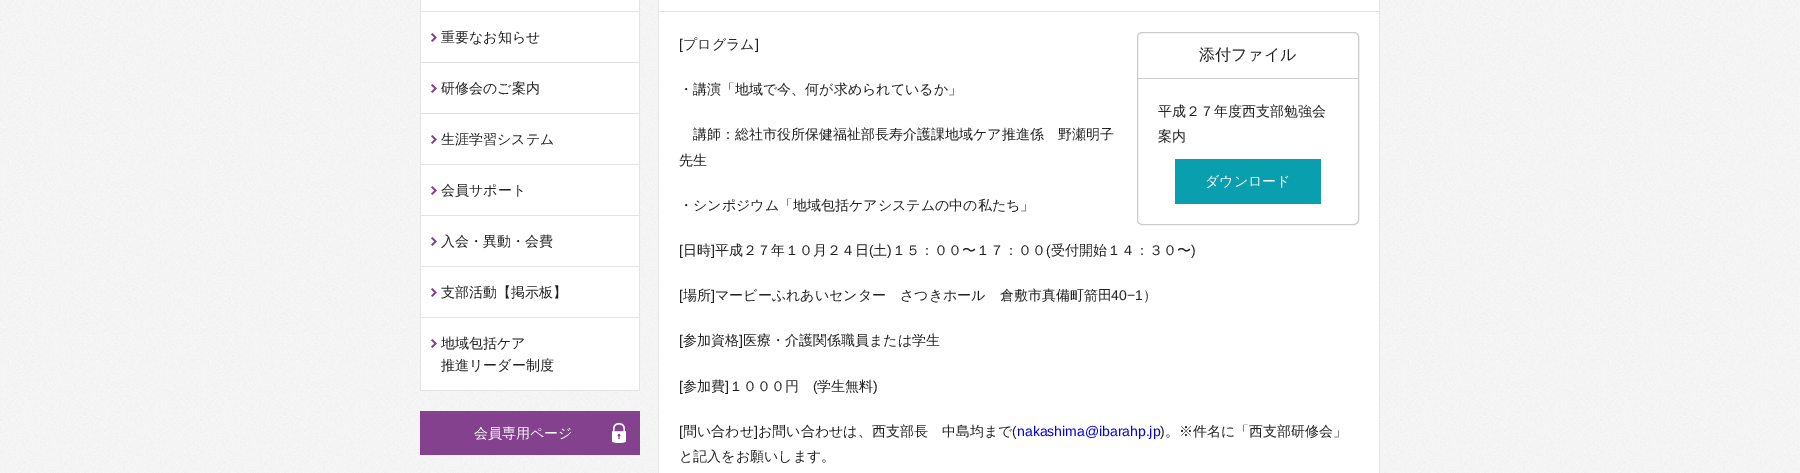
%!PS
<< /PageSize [1800 473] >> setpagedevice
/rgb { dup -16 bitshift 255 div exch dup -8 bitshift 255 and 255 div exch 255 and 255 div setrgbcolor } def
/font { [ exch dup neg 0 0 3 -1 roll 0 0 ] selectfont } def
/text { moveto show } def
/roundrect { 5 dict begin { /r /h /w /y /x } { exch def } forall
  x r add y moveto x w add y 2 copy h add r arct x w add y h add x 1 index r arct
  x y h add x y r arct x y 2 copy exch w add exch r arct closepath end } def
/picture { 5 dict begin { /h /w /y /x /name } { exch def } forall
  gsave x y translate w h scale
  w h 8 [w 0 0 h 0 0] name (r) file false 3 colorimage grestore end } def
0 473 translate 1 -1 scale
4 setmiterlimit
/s1 { /WenQuanYiZenHei-Medium 14 font 16#222222 rgb } def
/s2 { /WenQuanYiZenHei-Medium 14 font 16#FFFFFF rgb } def
/s3 { /LiberationSans-Regular 14 font 16#222222 rgb } def
/s4 { /WenQuanYiZenHei-Medium 16 font 16#222222 rgb } def
/s5 { /LiberationSans-Regular 14 font 16#0000EE rgb } def
16#FFFFFF rgb
0 0 1800 473 rectfill
(pic1.raw) 0 0 1800 473 picture
421 0 218 390 rectfill
16#E4E4E4 rgb
639 0 1 391 rectfill
420 0 1 391 rectfill
421 11 218 1 rectfill
421 62 218 1 rectfill
(pic2.raw) 431 33 6 9 picture
s1
(重要なお知らせ) 441 42 text
16#E4E4E4 rgb
421 113 218 1 rectfill
(pic2.raw) 431 84 6 9 picture
s1
(研修会のご案内) 441 93 text
16#E4E4E4 rgb
421 164 218 1 rectfill
(pic2.raw) 431 135 6 9 picture
s1
(生涯学習システム) 441 144 text
16#E4E4E4 rgb
421 215 218 1 rectfill
(pic2.raw) 431 186 6 9 picture
s1
(会員サポート) 441 195 text
16#E4E4E4 rgb
421 266 218 1 rectfill
(pic2.raw) 431 237 6 9 picture
s1
(入会・異動・会費) 441 246 text
16#E4E4E4 rgb
421 317 218 1 rectfill
(pic2.raw) 431 288 6 9 picture
s1
(支部活動【掲示板】) 441 297 text
16#E4E4E4 rgb
421 390 218 1 rectfill
(pic2.raw) 431 339 6 9 picture
s1
(地域包括ケア) 441 348 text
(推進リーダー制度) 441 370 text
16#84418E rgb
420 411 220 44 rectfill
(pic3.raw) 612 423 14 20 picture
s2
(会員専用ページ) 474 438 text
659 0 720 473 rectfill
16#E4E4E4 rgb
1379 0 1 473 rectfill
658 0 1 473 rectfill
659 11 720 1 rectfill
s3
([) 679 49 text
s1
(プログラム) 683 49 text
s3
(]) 755 49 text
s1
(・講演「地域で今、何が求められているか」) 679 94 text
16#CCCCCC rgb
1137.5 32.5 221 192 4.5 roundrect stroke
1138 78 220 1 rectfill
s4
(添付ファイル) 1199 60 text
s1
(平成２７年度西支部勉強会) 1158 116 text
(案内) 1158 141 text
16#099FAF rgb
1175 159 146 45 rectfill
s2
(ダウンロード) 1205 186 text
s1
(講師：総社市役所保健福祉部長寿介護課地域ケア推進係　野瀬明子) 693 139 text
(先生) 679 165 text
(・シンポジウム「地域包括ケアシステムの中の私たち」) 679 210 text
s3
([) 679 255 text
s1
(日時) 683 255 text
s3
(]) 711 255 text
s1
(平成２７年１０月２４日) 715 255 text
s3
(\() 869 255 text
s1
(土) 873 255 text
s3
(\)) 887 255 text
s1
(１５：００〜１７：００) 892 255 text
s3
(\() 1046 255 text
s1
(受付開始１４：３０〜) 1051 255 text
s3
(\)) 1191 255 text
([) 679 300 text
s1
(場所) 683 300 text
s3
(]) 711 300 text
s1
(マービーふれあいセンター　さつきホール　倉敷市真備町箭田) 715 300 text
s3
(40−1) 1111 300 text
s1
(）) 1143 300 text
s3
([) 679 345 text
s1
(参加資格) 683 345 text
s3
(]) 739 345 text
s1
(医療・介護関係職員または学生) 743 345 text
s3
([) 679 391 text
s1
(参加費) 683 391 text
s3
(]) 725 391 text
s1
(１０００円) 729 391 text
s3
(\() 813 391 text
s1
(学生無料) 817 391 text
s3
(\)) 873 391 text
([) 679 436 text
s1
(問い合わせ) 683 436 text
s3
(]) 754 436 text
s1
(お問い合わせは、西支部長　中島均まで) 758 436 text
s3
(\() 1012 436 text
s5
(nakashima@ibarahp.jp) 1017 436 text
s3
(\)) 1160 436 text
s1
(。※件名に「西支部研修会」) 1165 436 text
(と記入をお願いします。) 679 461 text
showpage
